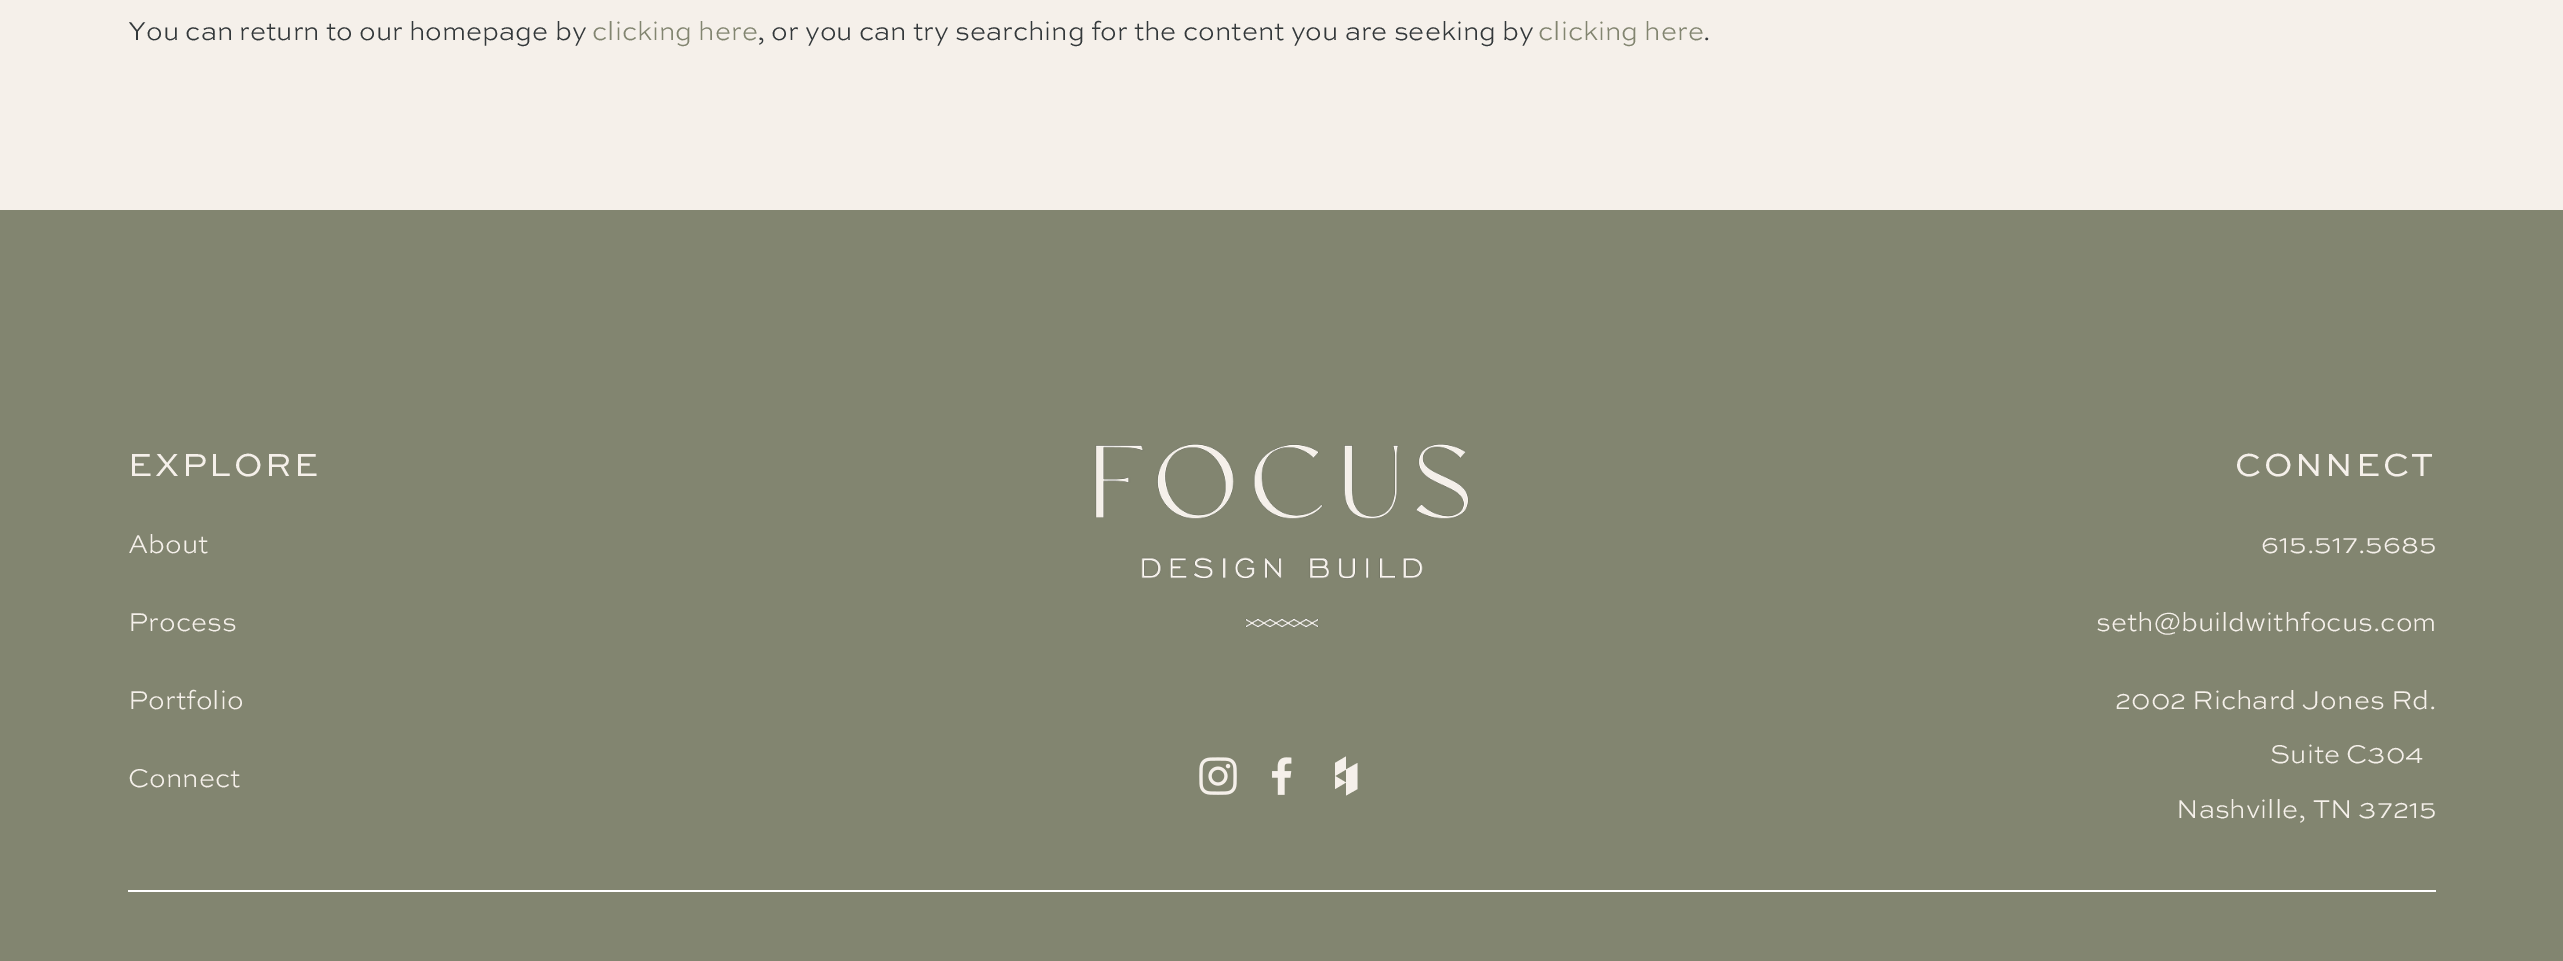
%!PS
<< /PageSize [2563 961] >> setpagedevice
/rgb { dup -16 bitshift 255 div exch dup -8 bitshift 255 and 255 div exch 255 and 255 div setrgbcolor } def
/font { [ exch dup neg 0 0 3 -1 roll 0 0 ] selectfont } def
/text { moveto show } def
/picture { 5 dict begin { /h /w /y /x /name } { exch def } forall
  gsave x y translate w h scale
  w h 8 [w 0 0 h 0 0] name (r) file false 3 colorimage grestore end } def
0 961 translate 1 -1 scale
4 setmiterlimit
/s1 { /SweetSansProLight-Light 27.1 font 16#33383A rgb } def
/s2 { /SweetSansProLight-Light 27.1 font 16#828570 rgb } def
/s3 { /SweetSansProLight-Light 27.1 font 16#F5F0EA rgb } def
16#F5F0EA rgb
0 0 2563 961 rectfill
s1
(You can return to our homepage by) 128 40 text
s2
(clicking here) 592 40 text
s1
(, or you can try searching for the content you are seeking by) 757 40 text
s2
(clicking here) 1538 40 text
s1
(.) 1703 40 text
16#828570 rgb
0 210 2563 751 rectfill
/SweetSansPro-Regular 33.5 font
16#F5F0EA rgb
128 476 moveto 2.75 0 (EXPLORE) ashow
(pic1.raw) 1095 444 374 184 picture
2235 476 moveto 2.75 0 (CONNECT) ashow
s3
(About) 128 553 text
(Process) 128 631 text
(Portfolio) 128 709 text
(Connect) 128 787 text
(pic2.raw) 1199 757 38 38 picture
(pic3.raw) 1272 757 20 38 picture
1335 789 moveto 1346 782.5 lineto 1335 776 lineto 1346 769.5 lineto 1346 795.5 lineto 1357.5 789 lineto 1357.5 763 lineto 1346 769.5 lineto 1346 756.5 lineto 1335 763 lineto closepath fill
(615.517.5685) 2261 553 text
(seth@buildwithfocus.com) 2096 631 text
(2002 Richard Jones Rd.) 2115 709 text
(Suite C304) 2270 763 text
(Nashville, TN 37215) 2176 818 text
16#FFFFFF rgb
128 890 2308 2 rectfill
showpage
